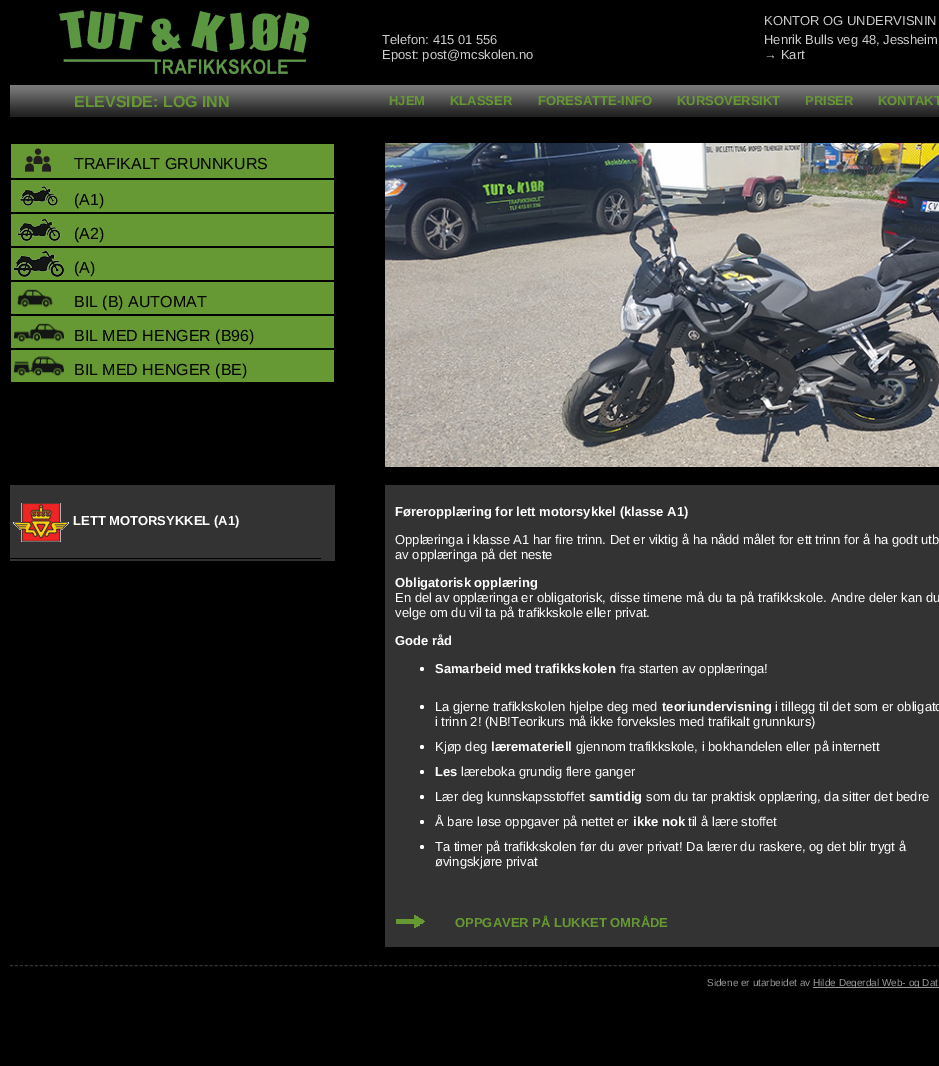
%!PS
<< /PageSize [939 1066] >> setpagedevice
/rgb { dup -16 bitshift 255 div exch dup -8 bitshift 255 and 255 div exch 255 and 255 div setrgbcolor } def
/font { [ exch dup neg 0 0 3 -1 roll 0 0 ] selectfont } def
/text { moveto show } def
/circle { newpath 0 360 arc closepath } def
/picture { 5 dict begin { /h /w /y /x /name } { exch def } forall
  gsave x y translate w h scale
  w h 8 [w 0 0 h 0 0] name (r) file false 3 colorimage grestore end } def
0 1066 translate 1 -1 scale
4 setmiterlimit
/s1 { /LiberationSans-Regular 13 font 16#CCCCCC rgb } def
/s2 { /LiberationSans-Bold 16 font 16#669933 rgb } def
/s3 { /LiberationSans-Bold 13 font 16#669933 rgb } def
/s4 { /LiberationSans-Regular 16 font 16#000000 rgb } def
/s5 { /LiberationSans-Bold 13 font 16#FFFFFF rgb } def
/s6 { /LiberationSans-Regular 13 font 16#FFFFFF rgb } def
/s7 { /LiberationSans-Regular 10 font 16#999999 rgb } def
16#000000 rgb
0 0 939 1066 rectfill
(pic1.raw) 59 10 250 64 picture
s1
(KONTOR OG UNDERVISNIN) 764 25 text
(Telefon: 415 01 556) 382 44 text
(Epost: post@mcskolen.no) 382 59 text
(Henrik Bulls veg 48, Jessheim) 764 44 text
(→ Kart) 764 59 text
(pic2.raw) 10 85 929 32 picture
s2
(ELEVSIDE: LOG INN) 74 107 text
s3
(HJEM) 389 105 text
(KLASSER) 450 105 text
(FORESATTE-INFO) 538 105 text
(KURSOVERSIKT) 677 105 text
(PRISER) 805 105 text
(KONTAKT) 878 105 text
11 144 323 34 rectfill
(pic3.raw) 25 148 26 24 picture
s4
(TRAFIKALT GRUNNKURS) 74 169 text
16#669933 rgb
11 180 323 32 rectfill
(pic4.raw) 20 186 38 20 picture
s4
(\(A1\)) 74 205 text
16#669933 rgb
11 214 323 32 rectfill
(pic5.raw) 17 218 44 24 picture
s4
(\(A2\)) 74 239 text
16#669933 rgb
11 248 323 32 rectfill
(pic6.raw) 14 251 50 26 picture
s4
(\(A\)) 74 273 text
16#669933 rgb
11 282 323 32 rectfill
(pic7.raw) 17 289 36 19 picture
s4
(BIL \(B\) AUTOMAT) 74 307 text
16#669933 rgb
11 316 323 32 rectfill
(pic8.raw) 14 323 50 19 picture
s4
(BIL MED HENGER \(B96\)) 74 341 text
16#669933 rgb
11 350 323 32 rectfill
(pic9.raw) 14 356 50 20 picture
s4
(BIL MED HENGER \(BE\)) 74 375 text
(pic10.raw) 385 143 554 324 picture
16#333333 rgb
10 485 325 76 rectfill
16#000000 rgb
10 558 311 1 rectfill
(pic11.raw) 13 503 56 39 picture
s5
(LETT MOTORSYKKEL \(A1\)) 73 525 text
16#333333 rgb
385 485 554 462 rectfill
s5
(Føreropplæring for lett motorsykkel \(klasse A1\)) 395 516 text
s6
(Opplæringa i klasse A1 har fire trinn. Det er viktig å ha nådd målet for ett trinn for å ha godt utb) 395 544 text
(av opplæringa på det neste) 395 559 text
s5
(Obligatorisk opplæring) 395 587 text
s6
(En del av opplæringa er obligatorisk, disse timene må du ta på trafikkskole. Andre deler kan du) 395 602 text
(velge om du vil ta på trafikkskole eller privat.) 395 617 text
s5
(Gode råd) 395 645 text
422 669 2 circle fill
(Samarbeid med trafikkskolen) 435 673 text
s6
(fra starten av opplæringa!) 620 673 text
422 707 2 circle fill
(La gjerne trafikkskolen hjelpe deg med) 435 711 text
s5
(teoriundervisning) 662 711 text
s6
(i tillegg til det som er obligato) 775 711 text
(i trinn 2! \(NB!Teorikurs må ikke forveksles med trafikalt grunnkurs\)) 435 726 text
422 747 2 circle fill
(Kjøp deg) 435 751 text
s5
(læremateriell) 491 751 text
s6
(gjennom trafikkskole, i bokhandelen eller på internett) 576 751 text
422 772 2 circle fill
s5
(Les) 435 776 text
s6
(læreboka grundig flere ganger) 461 776 text
422 797 2 circle fill
(Lær deg kunnskapsstoffet) 435 801 text
s5
(samtidig) 589 801 text
s6
(som du tar praktisk opplæring, da sitter det bedre) 646 801 text
422 822 2 circle fill
(Å bare løse oppgaver på nettet er) 435 826 text
s5
(ikke nok) 633 826 text
s6
(til å lære stoffet) 688 826 text
422 847 2 circle fill
(Ta timer på trafikkskolen før du øver privat! Da lærer du raskere, og det blir trygt å) 435 851 text
(øvingskjøre privat) 435 866 text
(pic12.raw) 396 915 29 13 picture
s3
(OPPGAVER PÅ LUKKET OMRÅDE) 455 927 text
16#333333 rgb
[3 1.99] 0 setdash
10 965.5 moveto 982 965.5 lineto stroke
s7
(Sidene er utarbeidet av) 707 986 text
813 987 126 1 rectfill
(Hilde Degerdal Web- og Dat) 813 986 text
showpage
